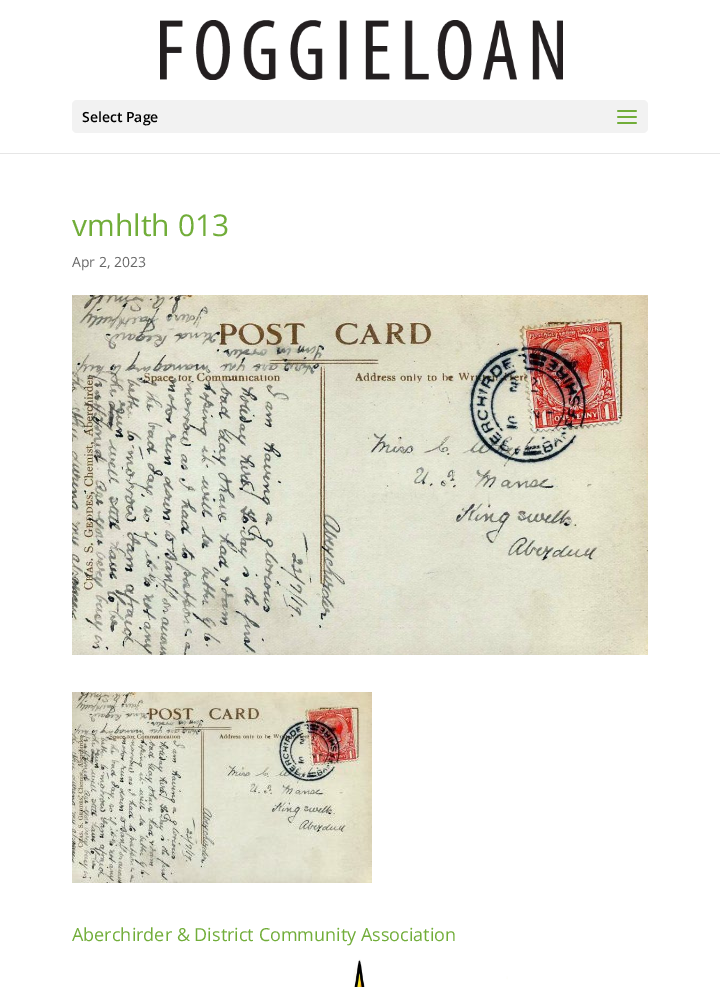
%!PS
<< /PageSize [720 987] >> setpagedevice
/rgb { dup -16 bitshift 255 div exch dup -8 bitshift 255 and 255 div exch 255 and 255 div setrgbcolor } def
/font { [ exch dup neg 0 0 3 -1 roll 0 0 ] selectfont } def
/text { moveto show } def
/roundrect { 5 dict begin { /r /h /w /y /x } { exch def } forall
  x r add y moveto x w add y 2 copy h add r arct x w add y h add x 1 index r arct
  x y h add x y r arct x y 2 copy exch w add exch r arct closepath end } def
/picture { 5 dict begin { /h /w /y /x /name } { exch def } forall
  gsave x y translate w h scale
  w h 8 [w 0 0 h 0 0] name (r) file false 3 colorimage grestore end } def
0 987 translate 1 -1 scale
4 setmiterlimit
/s1 { /OpenSans-SemiBold 14 font 16#000000 rgb } def
/s2 { /OpenSans-Regular 30 font 16#71AD39 rgb } def
/s3 { /OpenSans-Regular 14 font 16#666666 rgb } def
/s4 { /OpenSans-Regular 18 font 16#71AD39 rgb } def
16#FFFFFF rgb
0 0 720 987 rectfill
16#E6E6E6 rgb
0 153 720 1 rectfill
(pic1.raw) 160 20 403 60 picture
16#F2F2F2 rgb
72 100 576 33 5 roundrect fill
s1
(Select Page) 82 122 text
(pic2.raw) 617 110 20 14 picture
s2
(vmhlth 013) 72 236 text
s3
(Apr 2, 2023) 72 267 text
(pic3.raw) 72 295 576 360 picture
(pic4.raw) 72 692 300 191 picture
s4
(Aberchirder & District Community Association) 72 941 text
(pic5.raw) 353 959 155 28 picture
showpage
